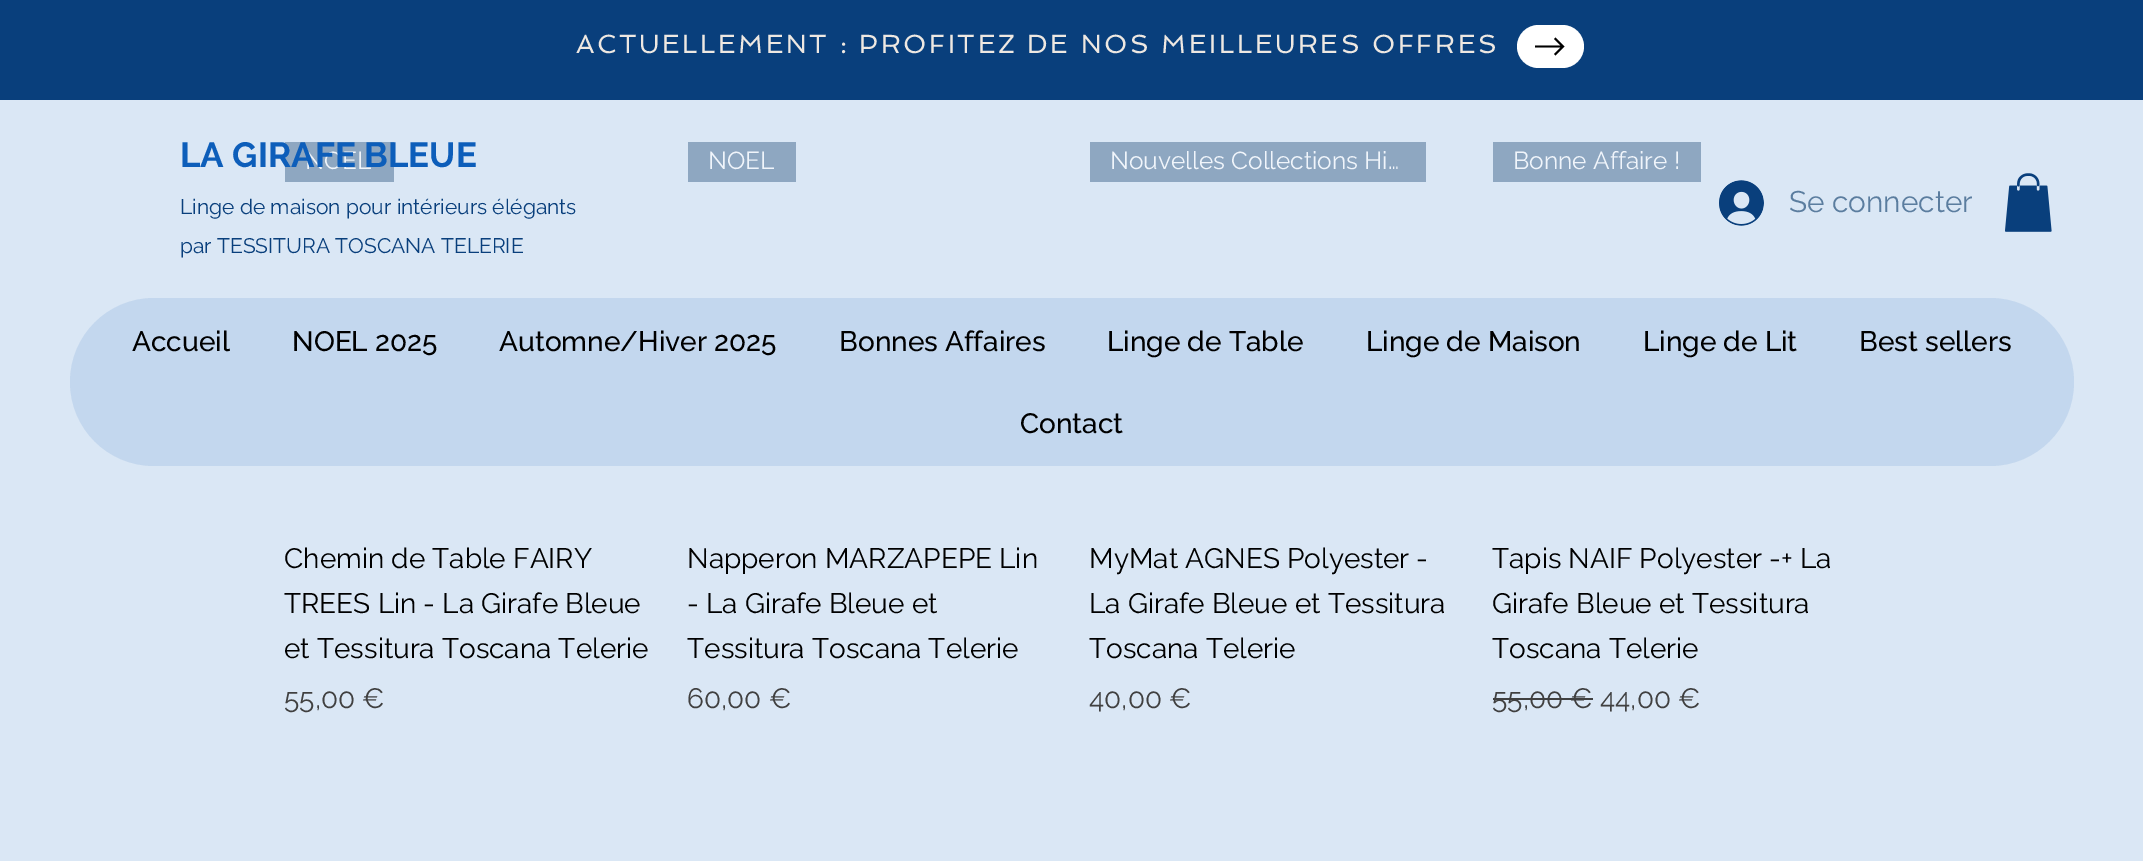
%!PS
<< /PageSize [2143 861] >> setpagedevice
/rgb { dup -16 bitshift 255 div exch dup -8 bitshift 255 and 255 div exch 255 and 255 div setrgbcolor } def
/font { [ exch dup neg 0 0 3 -1 roll 0 0 ] selectfont } def
/text { moveto show } def
/roundrect { 5 dict begin { /r /h /w /y /x } { exch def } forall
  x r add y moveto x w add y 2 copy h add r arct x w add y h add x 1 index r arct
  x y h add x y r arct x y 2 copy exch w add exch r arct closepath end } def
/picture { 5 dict begin { /h /w /y /x /name } { exch def } forall
  gsave x y translate w h scale
  w h 8 [w 0 0 h 0 0] name (r) file false 3 colorimage grestore end } def
0 861 translate 1 -1 scale
4 setmiterlimit
/s1 { /Raleway-Regular 24.5 font 16#F0F5FB rgb } def
/s2 { /Raleway-Bold 35 font 16#0D5EBA rgb } def
/s3 { /Raleway-Regular 21 font 16#093F7C rgb } def
/s4 { /Raleway-Regular 29.75 font 16#5B7D9F rgb } def
/s5 { /Raleway-Medium 28 font 16#000000 rgb } def
/s6 { /Raleway-Regular 28 font 16#000000 rgb } def
/s7 { /Raleway-Regular 28 font 16#404040 rgb } def
16#DAE7F5 rgb
0 0 2143 861 rectfill
16#093F7C rgb
0 0 2143 100 rectfill
/Spinnaker-Regular 26.25 font
16#EEE8E2 rgb
576 53 moveto 2.6 0 (ACTUELLEMENT : PROFITEZ DE NOS MEILLEURES OFFRES) ashow
16#FFFFFF rgb
1517 25 67 43 21.5 roundrect fill
16#000000 rgb
1555.5 37.5 moveto 1554 39 lineto 1560.5 45.5 lineto 1535 45.5 lineto 1535 47.5 lineto 1560.5 47.5 lineto 1554 54 lineto 1555.5 55.5 lineto 1564.5 46.5 lineto closepath eofill
16#8EA7C1 rgb
285 142 109 40 rectfill
s1
(NOEL) 305 169 text
s2
(LA GIRAFE BLEUE) 180 167 text
s3
(Linge de maison pour intérieurs élégants) 180 214 text
(par TESSITURA TOSCANA TELERIE) 180 253 text
(pic1.raw) 1719 180 45 46 picture
s4
(Se connecter) 1789 212 text
(pic2.raw) 2005 173 47 59 picture
16#C3D7EE rgb
70 298 2004 168 84 roundrect fill
s5
(Accueil) 132 351 text
(NOEL 2025) 292 351 text
(Automne/Hiver 2025) 499 351 text
(Bonnes Affaires) 839 351 text
(Linge de Table) 1107 351 text
(Linge de Maison) 1366 351 text
(Linge de Lit) 1643 351 text
(Best sellers) 1859 351 text
(Contact) 1020 433 text
s6
(Chemin de Table FAIRY) 284 568 text
(TREES Lin - La Girafe Bleue) 284 613 text
(et Tessitura Toscana Telerie) 284 658 text
s7
(55,00 €) 284 708 text
16#8EA7C1 rgb
688 142 108 40 rectfill
s1
(NOEL) 708 169 text
s6
(Napperon MARZAPEPE Lin) 687 568 text
(- La Girafe Bleue et) 687 613 text
(Tessitura Toscana Telerie) 687 658 text
s7
(60,00 €) 687 708 text
16#8EA7C1 rgb
1090 142 336 40 rectfill
s1
(Nouvelles Collections Hi…) 1110 169 text
s6
(MyMat AGNES Polyester -) 1089 568 text
(La Girafe Bleue et Tessitura) 1089 613 text
(Toscana Telerie) 1089 658 text
s7
(40,00 €) 1089 708 text
16#8EA7C1 rgb
1493 142 208 40 rectfill
s1
(Bonne Affaire !) 1513 169 text
s6
(Tapis NAIF Polyester -+ La) 1492 568 text
(Girafe Bleue et Tessitura) 1492 613 text
(Toscana Telerie) 1492 658 text
s7
(55,00 € 44,00 €) 1492 708 text
1493 698 100 2 rectfill
showpage
